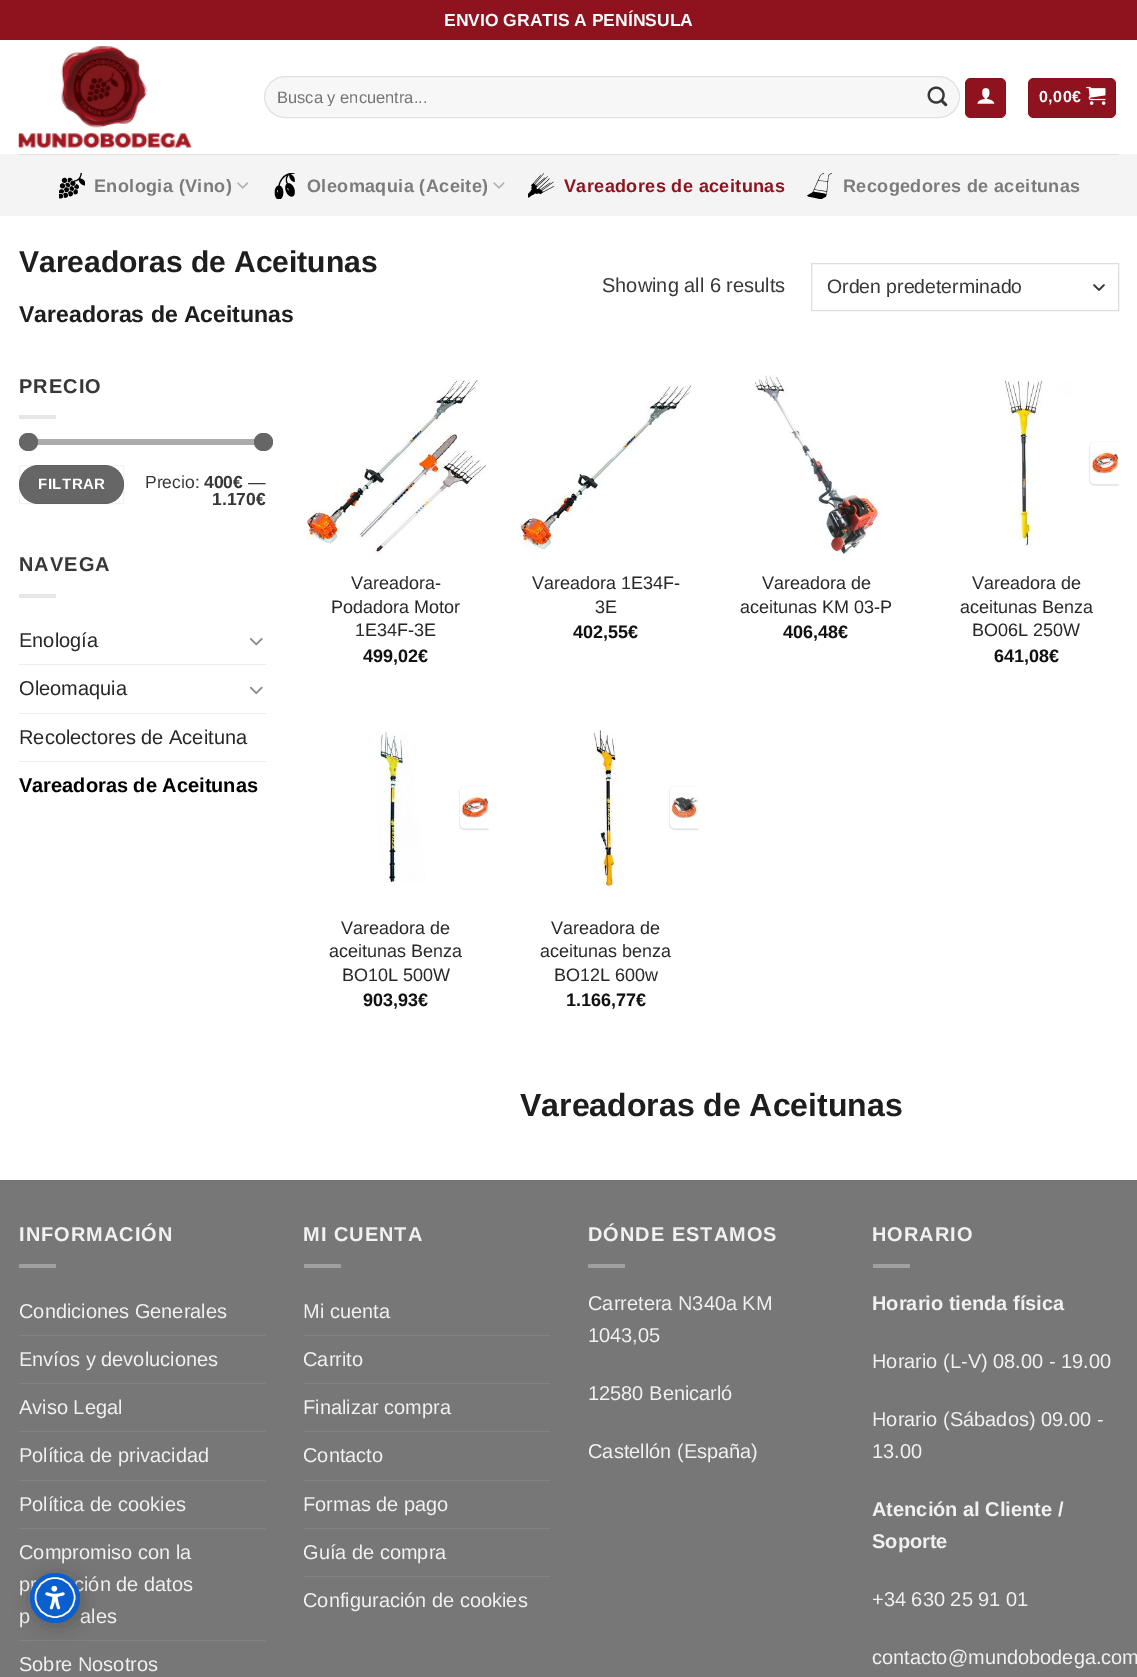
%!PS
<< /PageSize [1137 1677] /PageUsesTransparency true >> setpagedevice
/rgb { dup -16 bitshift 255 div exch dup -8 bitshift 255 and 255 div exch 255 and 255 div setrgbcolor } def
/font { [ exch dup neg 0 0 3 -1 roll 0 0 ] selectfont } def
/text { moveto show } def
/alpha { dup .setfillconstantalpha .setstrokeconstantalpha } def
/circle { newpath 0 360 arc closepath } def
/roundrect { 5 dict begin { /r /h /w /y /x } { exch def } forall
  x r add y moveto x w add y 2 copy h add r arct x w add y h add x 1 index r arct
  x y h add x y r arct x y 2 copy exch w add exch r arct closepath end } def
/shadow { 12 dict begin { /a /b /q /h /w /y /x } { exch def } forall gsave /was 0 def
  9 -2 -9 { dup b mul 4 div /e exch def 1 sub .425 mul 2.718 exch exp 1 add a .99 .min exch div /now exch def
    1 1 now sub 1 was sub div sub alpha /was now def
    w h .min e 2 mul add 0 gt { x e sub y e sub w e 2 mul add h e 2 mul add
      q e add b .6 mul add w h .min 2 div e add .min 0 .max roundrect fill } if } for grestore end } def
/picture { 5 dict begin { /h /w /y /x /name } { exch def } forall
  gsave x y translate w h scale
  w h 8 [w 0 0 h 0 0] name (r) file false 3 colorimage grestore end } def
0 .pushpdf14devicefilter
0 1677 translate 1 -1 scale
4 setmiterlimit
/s1 { /LiberationSans-Bold 17.5 font 16#FFFFFF rgb } def
/s2 { /LiberationSans-Regular 16.5 font 16#757575 rgb } def
/s3 { /LiberationSans-Bold 30 font 16#1E1E1E rgb } def
/s4 { /LiberationSans-Bold 23 font 16#1E1E1E rgb } def
/s5 { /LiberationSans-Regular 20 font 16#383838 rgb } def
/s6 { /LiberationSans-Regular 19.4 font 16#383838 rgb } def
/s7 { /LiberationSans-Regular 17.5 font 16#383838 rgb } def
/s8 { /LiberationSans-Bold 17.5 font 16#383838 rgb } def
/s9 { /LiberationSans-Regular 20 font 16#282828 rgb } def
/s10 { /LiberationSans-Bold 20 font 16#000000 rgb } def
/s11 { /LiberationSans-Regular 18 font 16#282828 rgb } def
/s12 { /LiberationSans-Bold 18 font 16#111111 rgb } def
/s13 { /LiberationSans-Bold 32 font 16#1E1E1E rgb } def
/s14 { /LiberationSans-Regular 20 font 16#F1F1F1 rgb } def
/s15 { /LiberationSans-Bold 20 font 16#F1F1F1 rgb } def
16#FFFFFF rgb
0 0 1137 1677 rectfill
16#8F121F rgb
0 0 1137 40 rectfill
s1
(ENVIO GRATIS A PENÍNSULA) 444 26 text
(pic1.raw) 18 46 174 102 picture
16#F7F7F7 rgb
264 76 696 42 21 roundrect fill
0.09 alpha
16#000000 rgb
264.5 76.5 695 41 20.5 roundrect stroke
gsave
278 88 663 18 rectclip
1 alpha
s2
(Busca y encuentra...) 277 103 text
grestore
1 alpha
(pic2.raw) 927 86 21 21 picture
16#8F121F rgb
965 78 41 40 6 roundrect fill
0.05 alpha
16#000000 rgb
965.5 78.5 40 39 rectstroke
1 alpha
(pic3.raw) 977 88 18 16 picture
16#8F121F rgb
1028 78 88 40 6 roundrect fill
0.05 alpha
16#000000 rgb
1028.5 78.5 87 39 rectstroke
/LiberationSans-Bold 16 font
1 alpha
16#FFFFFF rgb
1039 102 moveto 0.5 0 (0,00€) ashow
(pic4.raw) 1086 86 20 19 picture
16#F4F4F4 rgb
0 154 1137 62 rectfill
16#E1E1E1 rgb
19 154 1100 1 rectfill
(pic5.raw) 59 173 26 26 picture
/LiberationSans-Bold 18 font
16#7B7B7B rgb
94 192 moveto 0.4 0 (Enologia \(Vino\)) ashow
(pic6.raw) 237 182 12 7 picture
(pic7.raw) 274 173 21 26 picture
307 192 moveto 0.4 0 (Oleomaquia \(Aceite\)) ashow
(pic8.raw) 493 182 12 7 picture
(pic9.raw) 528 173 27 25 picture
16#8F121F rgb
564 192 moveto 0.4 0 (Vareadores de aceitunas) ashow
(pic10.raw) 807 173 25 26 picture
16#7B7B7B rgb
843 192 moveto 0.4 0 (Recogedores de aceitunas) ashow
s3
(Vareadoras de Aceitunas) 19 272 text
s4
(Vareadoras de Aceitunas) 19 322 text
s5
(Showing all 6 results) 602 292 text
16#333333 rgb
1.7 setlinewidth
1 setlinecap
1 setlinejoin
1094 285 moveto 1099 290 lineto 1104 285 lineto stroke
16#DDDDDD rgb
1 setlinewidth
0 setlinecap
0 setlinejoin
811.5 263.5 307 47 rectstroke
s6
(Orden predeterminado) 827 293 text
/LiberationSans-Bold 20 font
19 393 moveto 1 0 (PRECIO) ashow
16#E6E6E6 rgb
19 415 37 4 rectfill
16#F1F1F1 rgb
19 439 247 6 3 roundrect fill
0.5 alpha
16#666666 rgb
19 439 247 6 3 roundrect fill
1 alpha
19 433 19 18 9 roundrect fill
254 433 19 18 9 roundrect fill
19 465 105 39 19.5 roundrect fill
0.05 alpha
16#000000 rgb
19.5 465.5 104 38 rectstroke
/LiberationSans-Bold 15 font
1 alpha
16#FFFFFF rgb
38 489 moveto 0.5 0 (FILTRAR) ashow
s7
(Precio:) 145 488 text
s8
(400€) 204 488 text
s7
(—) 248 488 text
s8
(1.170€) 212 505 text
/LiberationSans-Bold 20 font
19 571 moveto 1 0 (NAVEGA) ashow
16#E6E6E6 rgb
19 594 37 4 rectfill
s9
(Enología) 19 647 text
(pic11.raw) 249 638 14 8 picture
16#ECECEC rgb
19 664 247 1 rectfill
s9
(Oleomaquia) 19 695 text
(pic12.raw) 249 686 14 9 picture
16#ECECEC rgb
19 713 247 1 rectfill
s9
(Recolectores de Aceituna) 19 744 text
16#ECECEC rgb
19 761 247 1 rectfill
s10
(Vareadoras de Aceitunas) 19 792 text
(pic13.raw) 303 380 184 174 picture
s11
(Vareadora-) 351 589 text
(Podadora Motor) 331 613 text
(1E34F-3E) 355 636 text
s12
(499,02€) 363 662 text
(pic14.raw) 518 385 174 165 picture
s11
(Vareadora 1E34F-) 532 589 text
(3E) 595 613 text
s12
(402,55€) 573 638 text
(pic15.raw) 753 375 129 181 picture
s11
(Vareadora de) 762 589 text
(aceitunas KM 03-P) 740 613 text
s12
(406,48€) 783 638 text
(pic16.raw) 1003 380 116 169 picture
s11
(Vareadora de) 972 589 text
(aceitunas Benza) 960 613 text
(BO06L 250W) 972 636 text
s12
(641,08€) 994 662 text
(pic17.raw) 377 731 112 152 picture
s11
(Vareadora de) 341 934 text
(aceitunas Benza) 329 957 text
(BO10L 500W) 342 981 text
s12
(903,93€) 363 1006 text
(pic18.raw) 592 730 107 162 picture
s11
(Vareadora de) 551 934 text
(aceitunas benza) 540 957 text
(BO12L 600w) 554 981 text
s12
(1.166,77€) 566 1006 text
s13
(Vareadoras de Aceitunas) 520 1116 text
16#777777 rgb
0 1181 1137 496 rectfill
16#717171 rgb
0 1180 1137 1 rectfill
/LiberationSans-Bold 20 font
16#F1F1F1 rgb
19 1241 moveto 1 0 (INFORMACIÓN) ashow
16#A0A0A0 rgb
19 1264 37 4 rectfill
s14
(Condiciones Generales) 19 1318 text
16#828282 rgb
19 1335 247 1 rectfill
s14
(Envíos y devoluciones) 19 1366 text
16#828282 rgb
19 1383 247 1 rectfill
s14
(Aviso Legal) 19 1414 text
16#828282 rgb
19 1431 247 1 rectfill
s14
(Política de privacidad) 19 1462 text
16#828282 rgb
19 1480 247 1 rectfill
s14
(Política de cookies) 19 1511 text
16#828282 rgb
19 1528 247 1 rectfill
s14
(Compromiso con la) 19 1559 text
(pr) 19 1591 text
(ción de datos) 74 1591 text
(p) 19 1623 text
(ales) 80 1623 text
16#828282 rgb
19 1640 247 1 rectfill
s14
(Sobre Nosotros) 19 1671 text
/LiberationSans-Bold 20 font
303 1241 moveto 1 0 (MI CUENTA) ashow
16#A0A0A0 rgb
304 1264 37 4 rectfill
s14
(Mi cuenta) 303 1318 text
16#828282 rgb
304 1335 246 1 rectfill
s14
(Carrito) 303 1366 text
16#828282 rgb
304 1383 246 1 rectfill
s14
(Finalizar compra) 303 1414 text
16#828282 rgb
304 1431 246 1 rectfill
s14
(Contacto) 303 1462 text
16#828282 rgb
304 1480 246 1 rectfill
s14
(Formas de pago) 303 1511 text
16#828282 rgb
304 1528 246 1 rectfill
s14
(Guía de compra) 303 1559 text
16#828282 rgb
304 1576 246 1 rectfill
s14
(Configuración de cookies) 303 1607 text
/LiberationSans-Bold 20 font
588 1241 moveto 1 0 (DÓNDE ESTAMOS) ashow
16#A0A0A0 rgb
588 1264 37 4 rectfill
s14
(Carretera N340a KM) 588 1310 text
(1043,05) 588 1342 text
(12580 Benicarló) 588 1400 text
(Castellón \(España\)) 588 1458 text
/LiberationSans-Bold 20 font
872 1241 moveto 1 0 (HORARIO) ashow
16#A0A0A0 rgb
873 1264 37 4 rectfill
s15
(Horario tienda física) 872 1310 text
s14
(Horario \(L-V\) 08.00 - 19.00) 872 1368 text
(Horario \(Sábados\) 09.00 -) 872 1426 text
(13.00) 872 1458 text
s15
(Atención al Cliente /) 872 1516 text
(Soporte) 872 1548 text
s14
(+34 630 25 91 01) 872 1606 text
(contacto@mundobodega.com) 872 1664 text
16#000000 rgb
33 1576 50 50 25 9.5 0.2 shadow
16#0A5FCD rgb
55 1598 25 circle fill
16#FFFFFF rgb
1.5 setlinewidth
35.5 1597.5 moveto 35.5 1586.5 44 1578 55 1578 curveto 66 1578 74.5 1586.5 74.5 1597.5 curveto 74.5 1608.5 66 1617 55 1617 curveto 44 1617 35.5 1608.5 35.5 1597.5 curveto stroke
(pic19.raw) 45 1586 20 24 picture
.poppdf14devicefilter showpage
